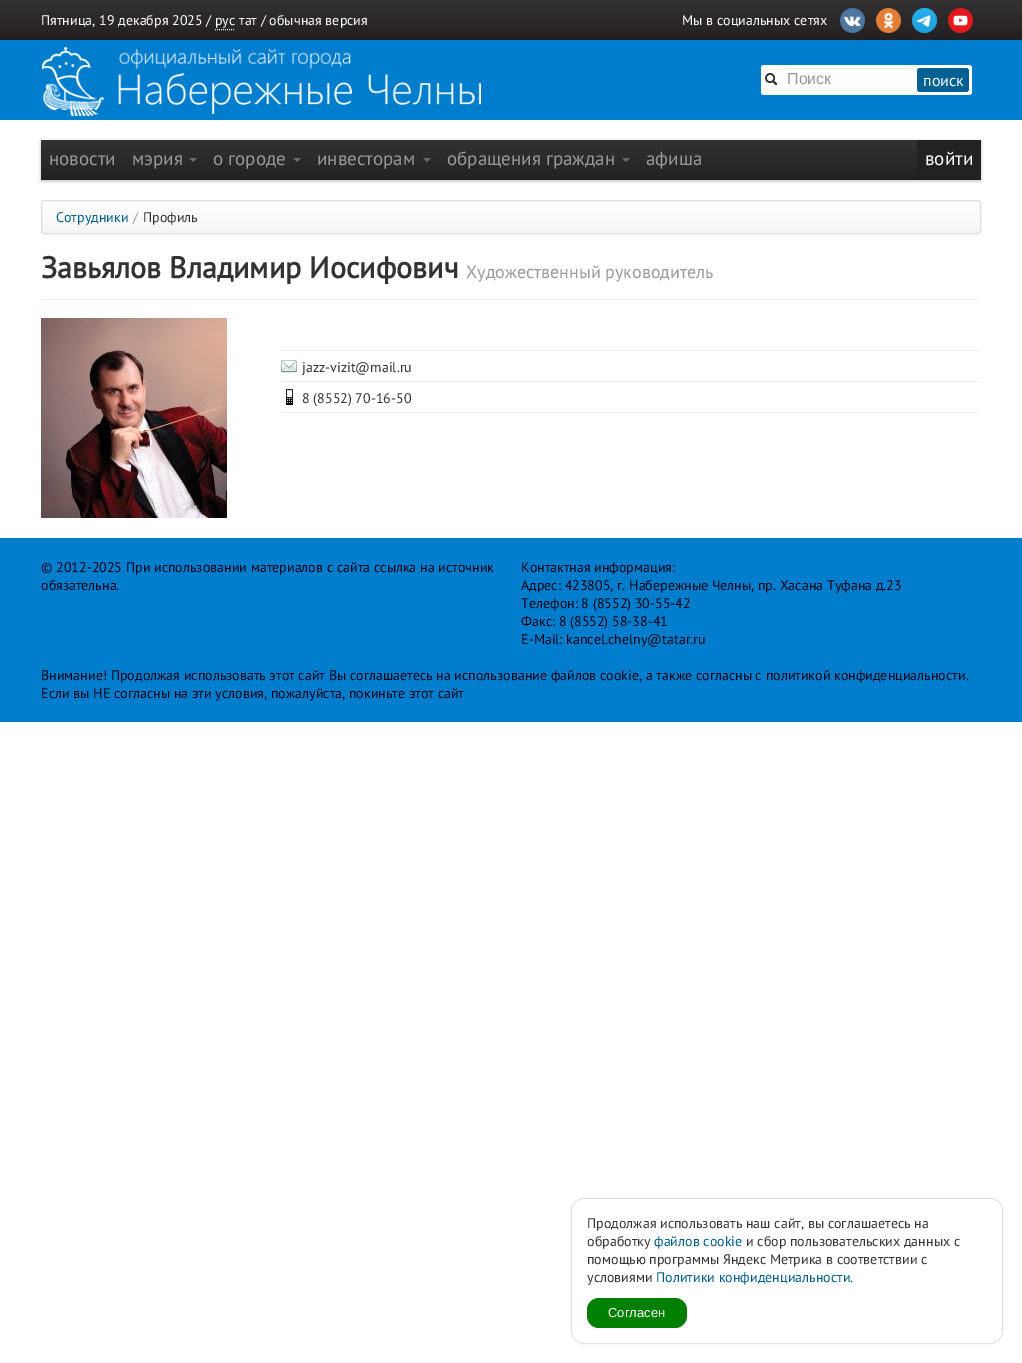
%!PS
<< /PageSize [1022 1363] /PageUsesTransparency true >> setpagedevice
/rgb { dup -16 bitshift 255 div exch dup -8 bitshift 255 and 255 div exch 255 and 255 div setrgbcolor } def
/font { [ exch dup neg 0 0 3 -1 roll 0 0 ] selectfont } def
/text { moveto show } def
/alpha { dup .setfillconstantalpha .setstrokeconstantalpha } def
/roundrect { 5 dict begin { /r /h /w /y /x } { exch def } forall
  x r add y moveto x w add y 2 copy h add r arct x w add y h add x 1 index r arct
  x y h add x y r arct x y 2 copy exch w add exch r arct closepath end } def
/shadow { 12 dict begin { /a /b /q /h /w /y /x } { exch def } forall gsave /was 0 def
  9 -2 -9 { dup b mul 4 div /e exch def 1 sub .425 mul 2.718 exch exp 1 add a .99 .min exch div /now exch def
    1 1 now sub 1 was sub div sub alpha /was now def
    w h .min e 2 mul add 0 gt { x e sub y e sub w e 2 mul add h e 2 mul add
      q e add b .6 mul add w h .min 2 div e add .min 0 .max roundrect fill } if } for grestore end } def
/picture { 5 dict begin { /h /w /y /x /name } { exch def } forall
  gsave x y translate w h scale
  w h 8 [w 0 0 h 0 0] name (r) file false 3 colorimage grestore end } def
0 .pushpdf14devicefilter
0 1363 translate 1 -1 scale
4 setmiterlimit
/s1 { /PTSans-Regular 14 font 16#FFFFFF rgb } def
/s2 { /LiberationSans-Regular 16 font 16#999999 rgb } def
/s3 { /PTSans-Regular 16 font 16#FFFFFF rgb } def
/s4 { /PTSans-Regular 19 font 16#999999 rgb } def
/s5 { /PTSans-Regular 19 font 16#FFFFFF rgb } def
/s6 { /PTSans-Regular 14 font 16#005D8B rgb } def
/s7 { /PTSans-Regular 14 font 16#999999 rgb } def
/s8 { /PTSans-Regular 14 font 16#333333 rgb } def
/s9 { /PTSans-Bold 30 font 16#333333 rgb } def
/s10 { /PTSans-Regular 18 font 16#999999 rgb } def
/s11 { /PTSans-Regular 14 font 16#000314 rgb } def
/s12 { /LiberationSans-Regular 13 font 16#FFFFFF rgb } def
16#FFFFFF rgb
0 0 1022 1363 rectfill
(pic1.raw) 0 0 1022 40 picture
s1
(Пятница, 19 декабря 2025 / рус тат / обычная версия) 41 25 text
[1 1] 0 setdash
215 29.5 moveto 235 29.5 lineto stroke
(Мы в социальных сетях) 682 25 text
(pic2.raw) 840 8 25 25 picture
(pic3.raw) 876 8 25 25 picture
(pic4.raw) 912 8 25 25 picture
(pic5.raw) 948 8 25 25 picture
16#007DCD rgb
0 40 1022 80 rectfill
(pic6.raw) 42 47 439 69 picture
16#FFFFFF rgb
761 65 211 30 3 roundrect fill
(pic7.raw) 765 73 13 13 picture
16#ECECEC rgb
786 69 moveto 910 69 lineto 912 69 913 70 913 72 curveto 913 70 913 68 911 68 curveto 785 68 lineto 783 68 783 70 783 72 curveto 783 70 784 69 786 69 curveto closepath fill
s2
(Поиск) 787 84 text
16#006092 rgb
917 68 52 24 3 roundrect fill
s3
(поиск) 923 86 text
16#000000 rgb
41 141 940 40 0 1.5 0.25 shadow
gsave 41 140 moveto 917 140 lineto 917 179 lineto 41 179 lineto closepath clip newpath
<< /ShadingType 2 /ColorSpace /DeviceRGB /Coords [511 140 511 180] /Extend [true true] /Function << /FunctionType 2 /Domain [0 1] /C0 [0.2 0.2 0.2] /C1 [0.133 0.133 0.133] /N 1 >> >> shfill grestore
16#1F1F1F rgb
41 179 940 1 rectfill
s4
(новости) 49 165 text
(мэрия) 132 165 text
16#6A6A6A rgb
189 158 moveto 197 158 lineto 193 162 lineto closepath fill
s4
(о городе) 213 165 text
16#6A6A6A rgb
293 158 moveto 301 158 lineto 297 162 lineto closepath fill
s4
(инвесторам) 317 165 text
16#6A6A6A rgb
423 158 moveto 431 158 lineto 427 162 lineto closepath fill
s4
(обращения граждан) 447 165 text
16#6A6A6A rgb
622 158 moveto 630 158 lineto 626 162 lineto closepath fill
s4
(афиша) 646 165 text
16#222222 rgb
917 140 64 39 rectfill
s5
(войти) 925 165 text
gsave
41 200 940 34 3 roundrect clip newpath
gsave 41 201 moveto 981 201 lineto 981 233 lineto 41 233 lineto closepath clip newpath
<< /ShadingType 2 /ColorSpace /DeviceRGB /Coords [511 201 511 233] /Extend [true true] /Function << /FunctionType 2 /Domain [0 1] /C0 [1 1 1] /C1 [0.961 0.961 0.961] /N 1 >> >> shfill grestore
grestore
16#DDDDDD rgb
[] 0 setdash
41.5 200.5 939 33 2.5 roundrect stroke
s6
(Сотрудники) 56 222 text
s7
(/) 133 222 text
s8
(Профиль) 143 222 text
16#EEEEEE rgb
41 299 940 1 rectfill
s9
(Завьялов Владимир Иосифович) 41 278 text
s10
(Художественный руководитель) 466 278 text
(pic8.raw) 41 318 186 200 picture
16#EEEEEE rgb
281 350 700 1 rectfill
(pic9.raw) 281 360 16 13 picture
s8
(jazz-vizit@mail.ru) 302 372 text
16#EEEEEE rgb
281 381 700 1 rectfill
(pic10.raw) 286 389 7 16 picture
s8
(8 \(8552\) 70-16-50) 302 403 text
16#EEEEEE rgb
281 412 700 1 rectfill
16#007DCD rgb
0 538 1022 184 rectfill
s11
(© 2012-2025 При использовании материалов с сайта ссылка на источник) 41 572 text
(обязательна.) 41 590 text
(Контактная информация:) 521 572 text
(Адрес: 423805, г. Набережные Челны, пр. Хасана Туфана д.23) 521 590 text
(Телефон: 8 \(8552\) 30-55-42) 521 608 text
(Факс: 8 \(8552\) 58-38-41) 521 626 text
(E-Mail: kancel.chelny@tatar.ru) 521 644 text
(Внимание! Продолжая использовать этот сайт Вы соглашаетесь на использование файлов cookie, а также согласны с политикой конфиденциальности.) 41 680 text
(Если вы НЕ согласны на эти условия, пожалуйста, покиньте этот сайт) 41 698 text
16#989898 rgb
572 1199 430 144 12 1 1 shadow
16#FFFFFF rgb
572 1199 430 144 12 roundrect fill
s8
(Продолжая использовать наш сайт, вы соглашаетесь на) 587 1228 text
(обработку) 587 1246 text
s6
(файлов cookie) 654 1246 text
s8
(и сбор пользовательских данных с) 746 1246 text
(помощью программы Яндекс Метрика в соответствии с) 587 1264 text
(условиями) 587 1282 text
s6
(Политики конфиденциальности.) 656 1282 text
16#008000 rgb
587 1298 100 30 12 roundrect fill
s12
(Согласен) 608 1317 text
.poppdf14devicefilter showpage
